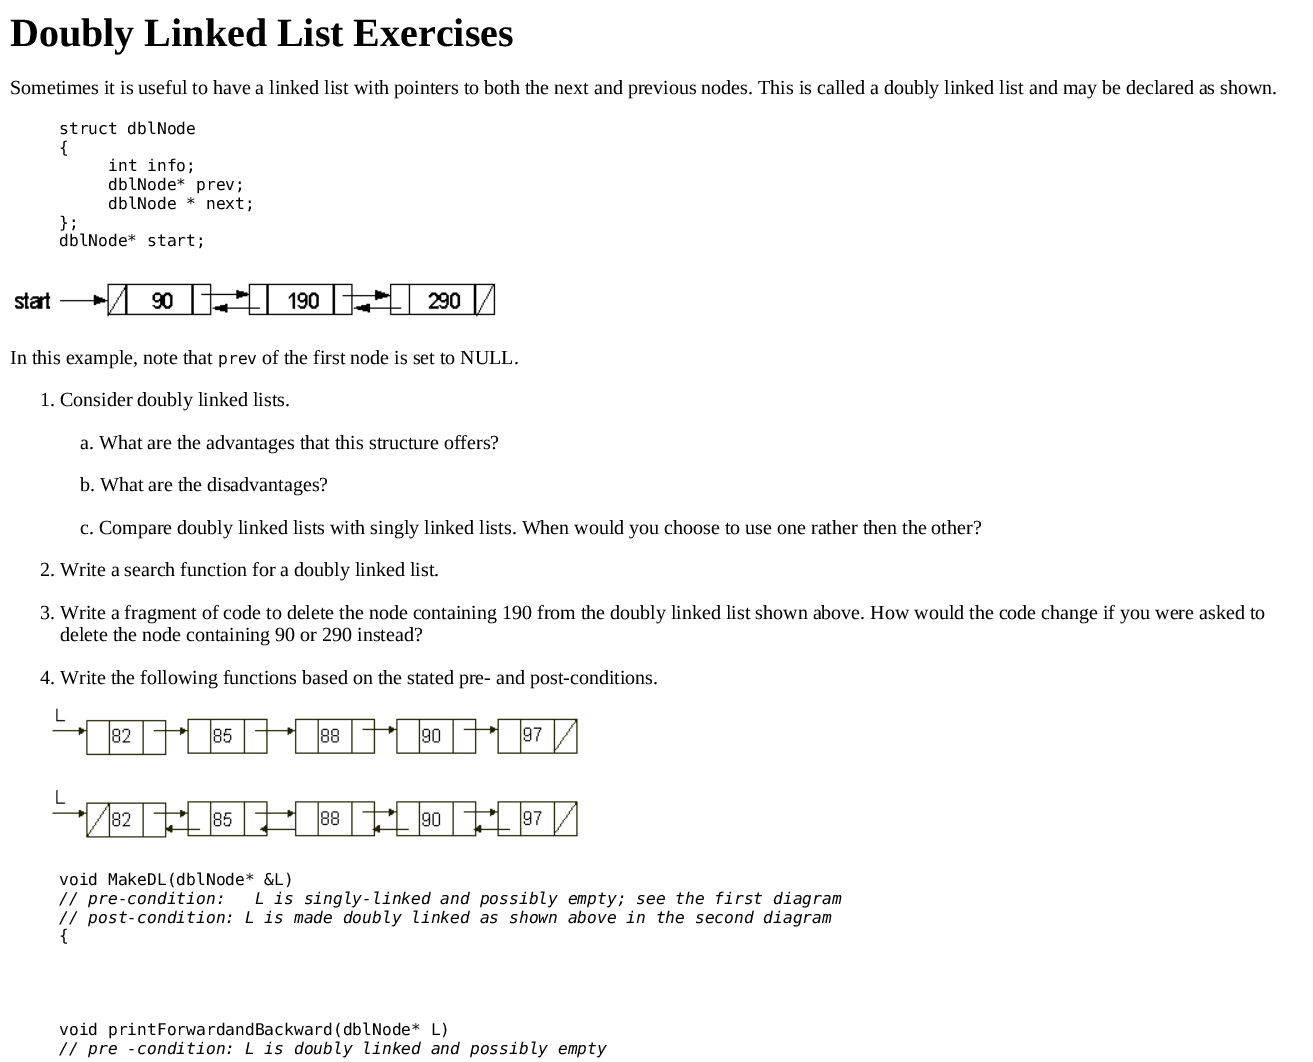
%!PS
<< /PageSize [1313 1062] >> setpagedevice
/rgb { dup -16 bitshift 255 div exch dup -8 bitshift 255 and 255 div exch 255 and 255 div setrgbcolor } def
/font { [ exch dup neg 0 0 3 -1 roll 0 0 ] selectfont } def
/text { moveto show } def
/picture { 5 dict begin { /h /w /y /x /name } { exch def } forall
  gsave x y translate w h scale
  w h 8 [w 0 0 h 0 0] name (r) file false 3 colorimage grestore end } def
0 1062 translate 1 -1 scale
4 setmiterlimit
/s1 { /LiberationSerif-Bold 40 font 16#000000 rgb } def
/s2 { /LiberationSerif-Regular 20 font 16#000000 rgb } def
/s3 { /DejaVuSansMono-Regular 16.25 font 16#000000 rgb } def
/s4 { /DejaVuSansMono-Italic 16.25 font 16#000000 rgb } def
16#FFFFFF rgb
0 0 1313 1062 rectfill
s1
(Doubly Linked List Exercises) 10 46 text
s2
(Sometimes it is useful to have a linked list with pointers to both the next and previous nodes. This is called a doubly linked list and may be declared as shown.) 10 94 text
s3
(struct dblNode) 59 134 text
({) 59 153 text
(int info;) 108 171 text
(dblNode* prev;) 108 190 text
(dblNode * next;) 108 209 text
(};) 59 228 text
(dblNode* start;) 59 246 text
(pic1.raw) 14 283 482 34 picture
s2
(In this example, note that) 10 364 text
s3
(prev) 218 364 text
s2
(of the first node is set to NULL.) 262 364 text
(1. Consider doubly linked lists.) 40 406 text
(a. What are the advantages that this structure offers?) 80 449 text
(b. What are the disadvantages?) 80 491 text
(c. Compare doubly linked lists with singly linked lists. When would you choose to use one rather then the other?) 80 534 text
(2. Write a search function for a doubly linked list.) 40 576 text
(3. Write a fragment of code to delete the node containing 190 from the doubly linked list shown above. How would the code change if you were asked to) 40 619 text
(delete the node containing 90 or 290 instead?) 60 641 text
(4. Write the following functions based on the stated pre- and post-conditions.) 40 684 text
(pic2.raw) 52 708 526 130 picture
s3
(void MakeDL\(dblNode* &L\)) 59 885 text
s4
(// pre-condition:   L is singly-linked and possibly empty; see the first diagram) 59 904 text
(// post-condition: L is made doubly linked as shown above in the second diagram) 59 923 text
s3
({) 59 941 text
(void printForwardandBackward\(dblNode* L\)) 59 1035 text
s4
(// pre -condition: L is doubly linked and possibly empty) 59 1054 text
showpage
